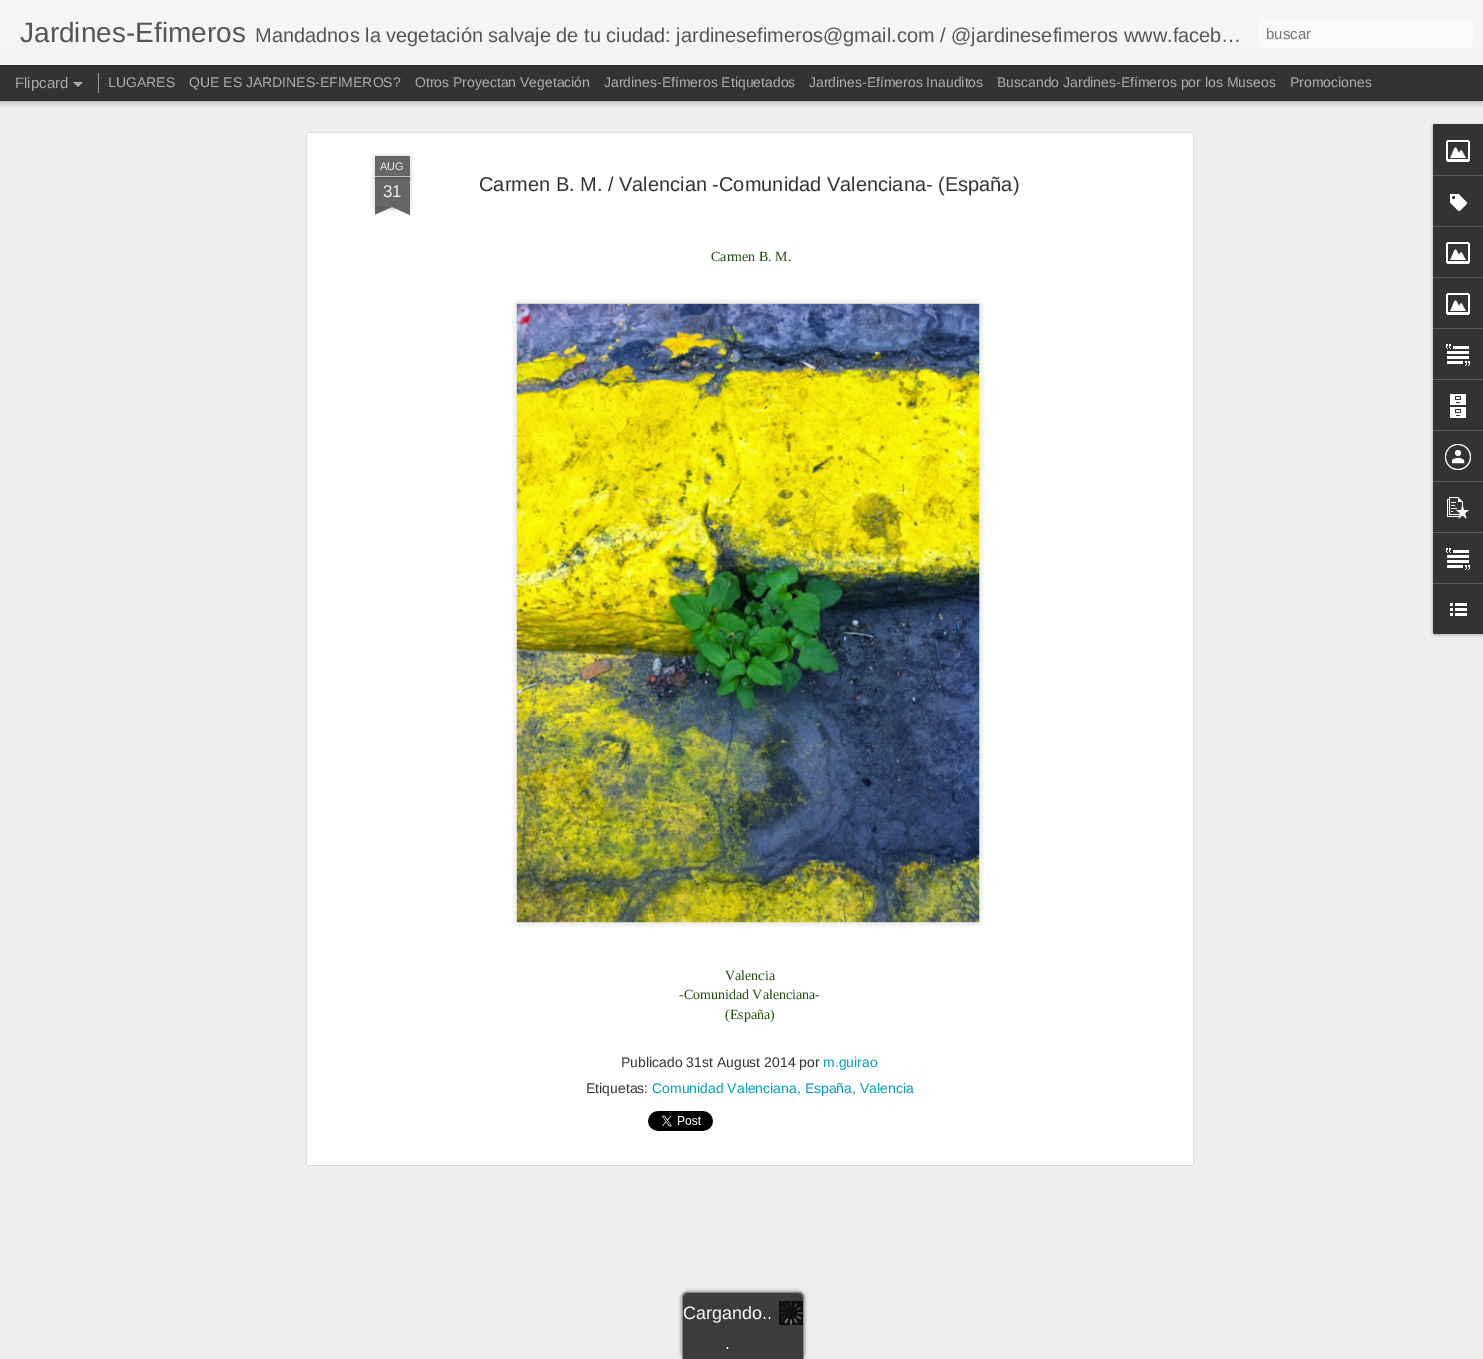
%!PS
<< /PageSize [1483 1359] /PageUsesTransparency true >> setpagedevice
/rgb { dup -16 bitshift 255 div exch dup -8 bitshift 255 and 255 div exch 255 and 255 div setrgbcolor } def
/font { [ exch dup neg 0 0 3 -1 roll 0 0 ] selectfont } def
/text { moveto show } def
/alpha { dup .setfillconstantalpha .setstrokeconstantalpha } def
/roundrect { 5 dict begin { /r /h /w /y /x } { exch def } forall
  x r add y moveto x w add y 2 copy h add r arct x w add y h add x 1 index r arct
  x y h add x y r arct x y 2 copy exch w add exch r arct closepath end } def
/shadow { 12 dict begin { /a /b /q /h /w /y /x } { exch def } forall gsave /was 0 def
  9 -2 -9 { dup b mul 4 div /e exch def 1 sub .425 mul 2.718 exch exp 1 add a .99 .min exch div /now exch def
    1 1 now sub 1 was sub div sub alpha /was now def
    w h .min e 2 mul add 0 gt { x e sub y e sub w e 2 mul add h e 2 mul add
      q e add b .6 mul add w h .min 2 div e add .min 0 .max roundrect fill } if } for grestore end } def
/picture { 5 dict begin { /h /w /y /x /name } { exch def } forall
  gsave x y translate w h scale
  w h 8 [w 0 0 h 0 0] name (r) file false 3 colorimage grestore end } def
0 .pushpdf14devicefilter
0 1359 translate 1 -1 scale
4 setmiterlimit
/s1 { /LiberationSans-Regular 28 font 16#555555 rgb } def
/s2 { /LiberationSans-Regular 20 font 16#555555 rgb } def
/s3 { /LiberationSans-Regular 15 font 16#757575 rgb } def
/s4 { /LiberationSans-Regular 15 font 16#ADADAD rgb } def
/s5 { /LiberationSans-Regular 14 font 16#ADADAD rgb } def
/s6 { /LiberationSans-Regular 11 font 16#EEEEEE rgb } def
/s7 { /LiberationSans-Regular 17 font 16#EEEEEE rgb } def
/s8 { /LiberationSans-Regular 20 font 16#333333 rgb } def
/s9 { /LiberationSerif-Regular 14 font 16#274E13 rgb } def
/s10 { /LiberationSans-Regular 14 font 16#333333 rgb } def
/s11 { /LiberationSans-Regular 14 font 16#009EB8 rgb } def
/s12 { /LiberationSans-Regular 18 font 16#FBFBFB rgb } def
16#333333 rgb
0 0 1483 1359 rectfill
16#EEEEEE rgb
0 101 1483 1258 rectfill
16#000000 rgb
0 65 1483 35 0 4 0.5 shadow
16#333333 rgb
0 65 1483 35 rectfill
16#999999 rgb
98 73 1 20 rectfill
16#000000 rgb
0 0 1483 65 0 2.5 0.3 shadow
gsave 0 0 moveto 1483 0 lineto 1483 65 lineto 0 65 lineto closepath clip newpath
<< /ShadingType 2 /ColorSpace /DeviceRGB /Coords [0 0 0 65] /Extend [true true] /Function << /FunctionType 2 /Domain [0 1] /C0 [0.969 0.969 0.969] /C1 [0.957 0.957 0.957] /N 1 >> >> shfill grestore
s1
(Jardines-Efimeros) 20 42 text
s2
(Mandadnos la vegetación salvaje de tu ciudad: jardinesefimeros@gmail.com / @jardinesefimeros www.faceb…) 255 42 text
16#FAFAFA rgb
1259 18 214 30 3 roundrect fill
s3
(buscar) 1266 39 text
s4
(Flipcard) 15 88 text
73 82 moveto 83 82 lineto 78 87 lineto closepath fill
s5
(LUGARES) 108 87 text
(QUE ES JARDINES-EFIMEROS?) 189 87 text
(Otros Proyectan Vegetación) 415 87 text
(Jardines-Efímeros Etiquetados) 604 87 text
(Jardines-Efímeros Inauditos) 809 87 text
(Buscando Jardines-Efímeros por los Museos) 997 87 text
(Promociones) 1290 87 text
16#FFFFFF rgb
305 131 890 1036 rectfill
(pic1.raw) 305 131 890 1036 picture
16#000000 rgb
375 177 35 30 0 2.5 0.2 shadow
16#666666 rgb
375 177 35 30 rectfill
16#000000 rgb
375 156 35 21 1 2.5 0.2 shadow
16#666666 rgb
376 156 moveto 409 156 lineto 409.5 156 410 156.5 410 157 curveto 410 177 lineto 375 177 lineto 375 157 lineto 375 156.5 375.5 156 376 156 curveto closepath fill
16#C2C2C2 rgb
375 176 35 1 rectfill
s6
(AUG) 380 170 text
s7
(31) 383 197 text
gsave
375 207 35 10 rectclip
16#000000 rgb
366 197 50 10 0 2.5 0.2 shadow
grestore
gsave
375 207 35 10 rectclip
16#666666 rgb
366 208 moveto 411 187 lineto 415 196 lineto 370 217 lineto closepath fill
grestore
gsave
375 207 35 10 rectclip
16#000000 rgb
369 197 50 10 0 2.5 0.2 shadow
grestore
gsave
375 207 35 10 rectclip
16#666666 rgb
373 187 moveto 418 208 lineto 414 217 lineto 369 196 lineto closepath fill
grestore
s8
(Carmen B. M. / Valencian -Comunidad Valenciana- \(España\)) 479 191 text
s9
(Carmen B. M.) 711 261 text
(pic2.raw) 512 299 472 628 picture
(pic3.raw) 516 303 464 620 picture
(Valencia) 725 980 text
(-Comunidad Valenciana-) 679 999 text
(\(España\)) 725 1019 text
s10
(Publicado 31st August 2014 por) 621 1067 text
s11
(m.guirao) 823 1067 text
s10
(Etiquetas:) 586 1093 text
s11
(Comunidad Valenciana, España, Valencia) 652 1093 text
(pic4.raw) 648 1111 65 20 picture
16#000000 rgb
1433 125 50 510 2 1.5 0.3 shadow
16#333333 rgb
1435 124 moveto 1483 124 lineto 1483 634 lineto 1435 634 lineto 1434 634 1433 633 1433 632 curveto 1433 126 lineto 1433 125 1434 124 1435 124 curveto closepath fill
1435 124 moveto 1483 124 lineto 1483 175 lineto 1433 175 lineto 1433 126 lineto 1433 125 1434 124 1435 124 curveto closepath fill
(pic5.raw) 1446 140 24 22 picture
16#585858 rgb
1433 175 50 1 rectfill
(pic6.raw) 1450 194 17 17 picture
1433 226 50 1 rectfill
(pic5.raw) 1446 242 24 22 picture
1433 277 50 1 rectfill
(pic5.raw) 1446 293 24 22 picture
1433 328 50 1 rectfill
(pic7.raw) 1446 344 24 22 picture
1433 379 50 1 rectfill
(pic8.raw) 1450 394 16 24 picture
1433 430 50 1 rectfill
(pic9.raw) 1445 444 26 26 picture
1433 481 50 1 rectfill
(pic10.raw) 1447 497 22 22 picture
1433 532 50 1 rectfill
(pic7.raw) 1446 548 24 22 picture
16#333333 rgb
1433 583 moveto 1483 583 lineto 1483 634 lineto 1435 634 lineto 1434 634 1433 633 1433 632 curveto closepath fill
16#585858 rgb
1433 583 50 1 rectfill
(pic11.raw) 1450 603 17 13 picture
16#626262 rgb
682 1292 122 67 6 2 1 shadow
16#3C3C3C rgb
688 1292 moveto 798 1292 lineto 801.5 1292 804 1294.5 804 1298 curveto 804 1359 lineto 682 1359 lineto 682 1298 lineto 682 1294.5 684.5 1292 688 1292 curveto closepath fill
16#888888 rgb
688 1292 moveto 798 1292 lineto 801 1292 804 1295 804 1298 curveto 804 1359 lineto 682 1359 lineto 682 1298 lineto 682 1295 685 1292 688 1292 curveto closepath 688 1293 moveto 798 1293 lineto 801 1293 803 1295 803 1298 curveto 803 1359 lineto 683 1359 lineto 683 1298 lineto 683 1295 685 1293 688 1293 curveto closepath eofill
(pic12.raw) 779 1301 24 24 picture
s12
(Cargando..) 683 1319 text
(.) 725 1349 text
.poppdf14devicefilter showpage
